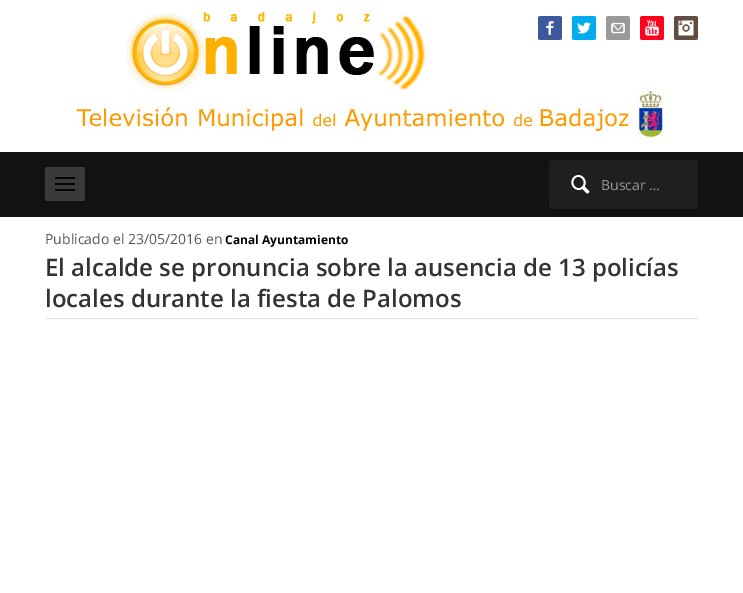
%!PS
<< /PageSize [743 593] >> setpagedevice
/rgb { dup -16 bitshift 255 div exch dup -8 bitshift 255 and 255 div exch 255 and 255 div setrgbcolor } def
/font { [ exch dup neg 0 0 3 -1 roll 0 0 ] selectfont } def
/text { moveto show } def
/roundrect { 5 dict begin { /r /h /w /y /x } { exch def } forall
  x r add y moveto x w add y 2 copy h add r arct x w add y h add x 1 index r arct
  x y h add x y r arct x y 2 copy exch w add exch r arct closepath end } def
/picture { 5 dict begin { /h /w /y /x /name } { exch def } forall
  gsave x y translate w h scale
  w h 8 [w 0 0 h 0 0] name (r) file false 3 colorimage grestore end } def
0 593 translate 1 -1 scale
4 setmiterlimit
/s1 { /OpenSans-Regular 14 font 16#999999 rgb } def
/s2 { /OpenSans-Regular 14 font 16#555555 rgb } def
/s3 { /OpenSans-Bold 12 font 16#000000 rgb } def
/s4 { /OpenSans-SemiBold 24 font 16#333333 rgb } def
16#FFFFFF rgb
0 0 743 593 rectfill
(pic1.raw) 126 12 300 78 picture
(pic2.raw) 75 90 593 50 picture
(pic3.raw) 538 16 24 24 picture
(pic4.raw) 572 16 24 24 picture
(pic5.raw) 606 16 24 24 picture
(pic6.raw) 640 16 24 24 picture
(pic7.raw) 674 16 24 24 picture
16#121212 rgb
0 152 743 65 rectfill
16#3A3A3A rgb
45 167 40 34 2 roundrect fill
16#020206 rgb
55 177 20 2 1 roundrect fill
55 183 20 2 1 roundrect fill
55 189 20 2 1 roundrect fill
16#1F1F1F rgb
549 160 149 49 3 roundrect fill
(pic8.raw) 571 175 19 19 picture
s1
(Buscar …) 601 190 text
s2
(Publicado el 23/05/2016 en) 45 244 text
s3
(Canal Ayuntamiento) 225 244 text
16#DFDFDF rgb
45 318 653 1 rectfill
s4
(El alcalde se pronuncia sobre la ausencia de 13 policías) 45 276 text
(locales durante la fiesta de Palomos) 45 307 text
showpage
